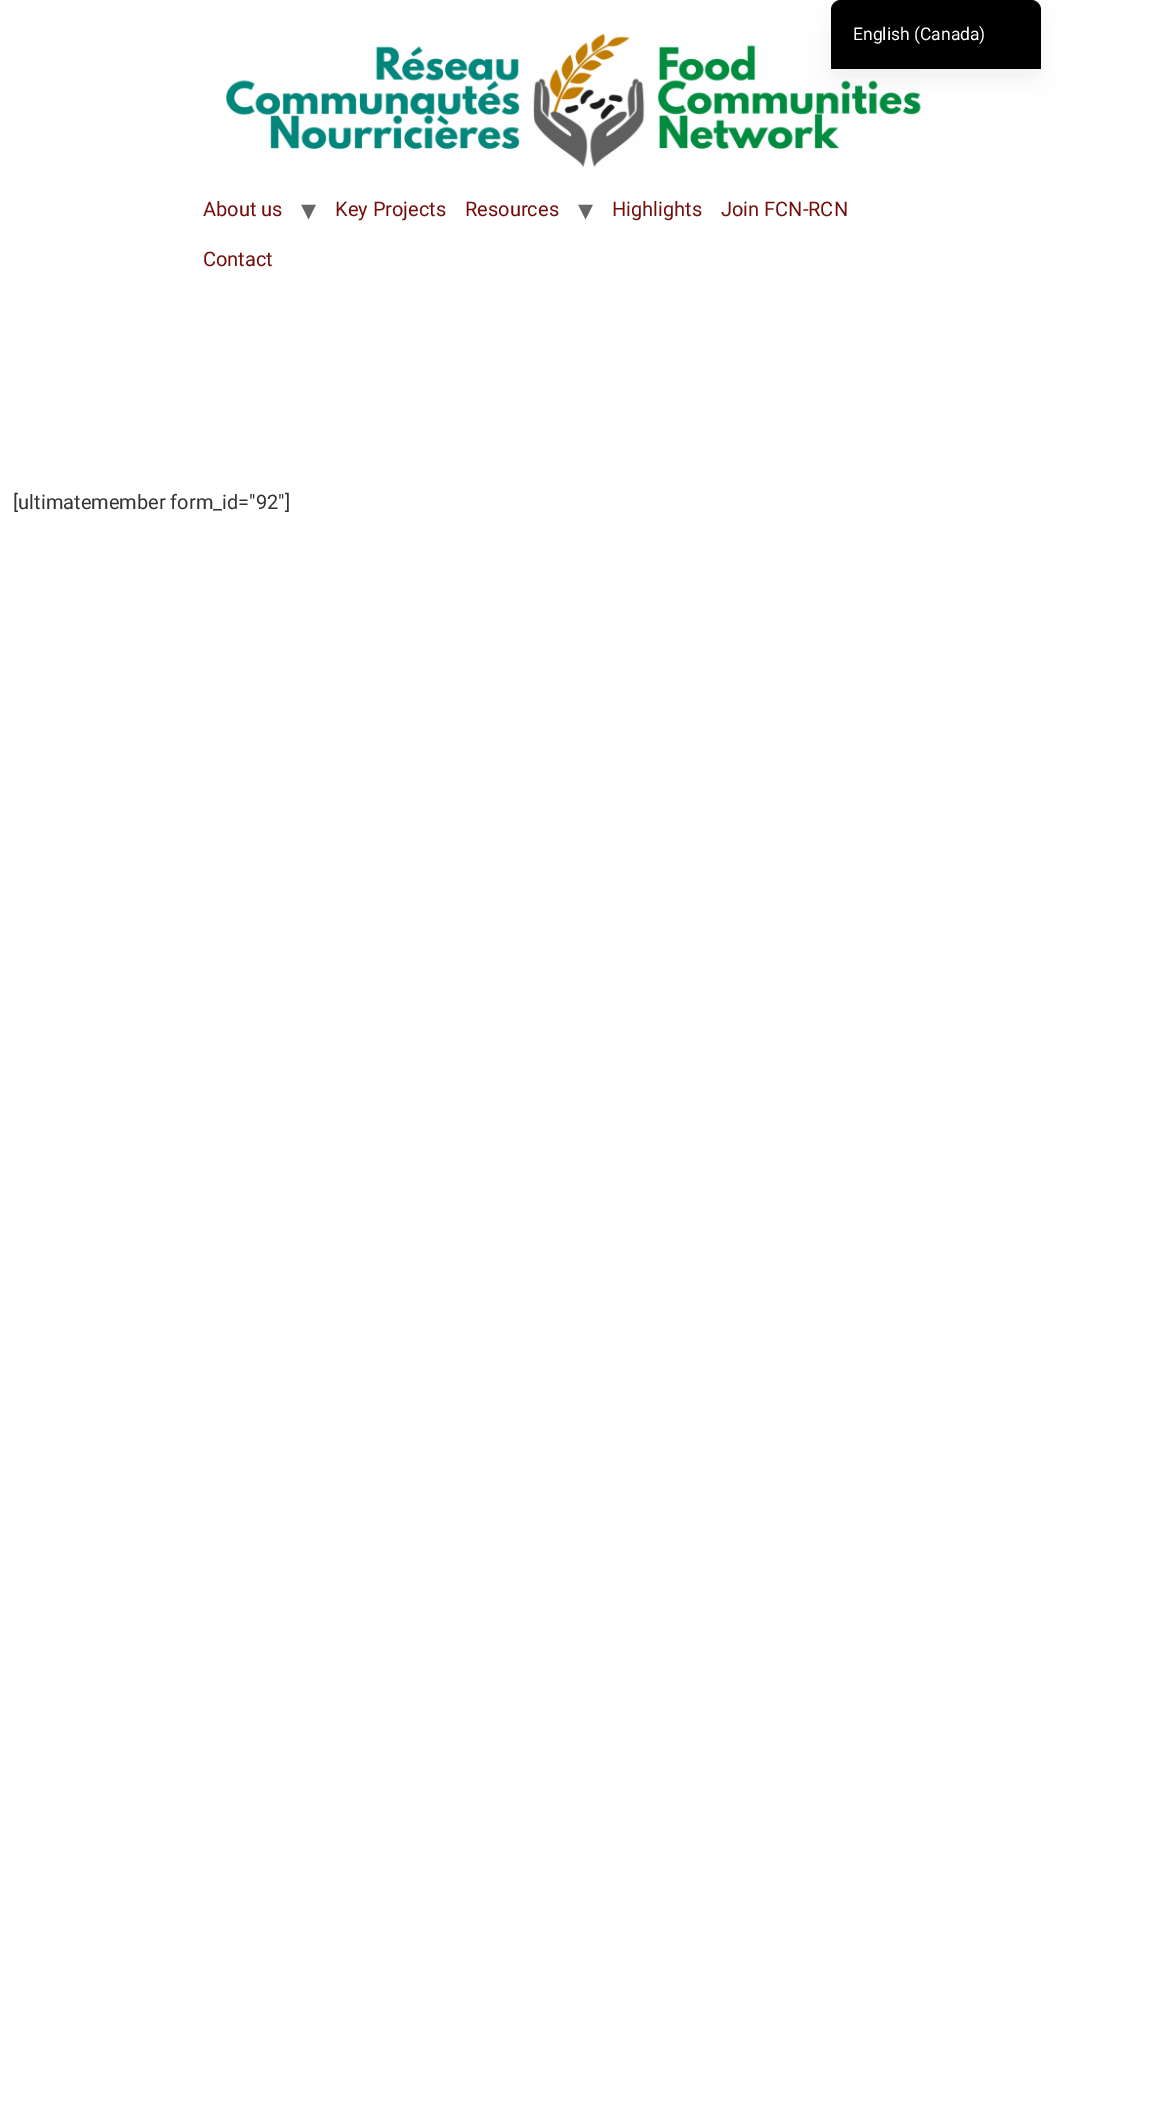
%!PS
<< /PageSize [1156 2125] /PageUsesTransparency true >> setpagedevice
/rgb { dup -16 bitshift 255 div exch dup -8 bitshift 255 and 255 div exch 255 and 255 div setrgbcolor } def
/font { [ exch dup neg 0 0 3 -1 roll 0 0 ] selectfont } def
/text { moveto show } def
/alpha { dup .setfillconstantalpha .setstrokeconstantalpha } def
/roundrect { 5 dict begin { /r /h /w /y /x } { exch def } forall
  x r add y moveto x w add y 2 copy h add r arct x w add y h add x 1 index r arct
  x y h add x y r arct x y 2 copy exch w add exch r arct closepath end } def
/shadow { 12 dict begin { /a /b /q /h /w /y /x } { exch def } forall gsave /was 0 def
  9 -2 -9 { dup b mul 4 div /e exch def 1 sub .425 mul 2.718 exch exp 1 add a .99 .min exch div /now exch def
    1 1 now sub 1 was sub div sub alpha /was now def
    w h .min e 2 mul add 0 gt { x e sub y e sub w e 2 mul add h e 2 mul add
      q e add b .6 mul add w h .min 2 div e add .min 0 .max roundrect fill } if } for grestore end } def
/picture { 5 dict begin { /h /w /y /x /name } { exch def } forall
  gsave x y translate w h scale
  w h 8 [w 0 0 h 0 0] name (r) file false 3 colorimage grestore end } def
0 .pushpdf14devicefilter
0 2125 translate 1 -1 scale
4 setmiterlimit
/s1 { /Roboto-Regular 17.5 font 16#FFFFFF rgb } def
/s2 { /Roboto-Regular 20 font 16#730E0E rgb } def
/s3 { /DejaVuSans-Regular 30 font 16#666666 rgb } def
/s4 { /Roboto-Regular 20 font 16#333333 rgb } def
16#FFFFFF rgb
0 0 1156 2125 rectfill
(pic1.raw) 225 33 696 135 picture
16#000000 rgb
831 13 210 68 10 12.5 0.05 shadow
841 0 moveto 1031 0 lineto 1036.5 0 1041 4.5 1041 10 curveto 1041 69 lineto 831 69 lineto 831 10 lineto 831 4.5 835.5 0 841 0 curveto closepath fill
s1
(English \(Canada\)) 853 40 text
s2
(About us) 203 216 text
s3
(▾) 301 220 text
s2
(Key Projects) 335 216 text
(Resources) 465 216 text
s3
(▾) 578 220 text
s2
(Highlights) 612 216 text
(Join FCN-RCN) 721 216 text
(Contact) 203 266 text
s4
([ultimatemember form_id="92"]) 13 509 text
.poppdf14devicefilter showpage
